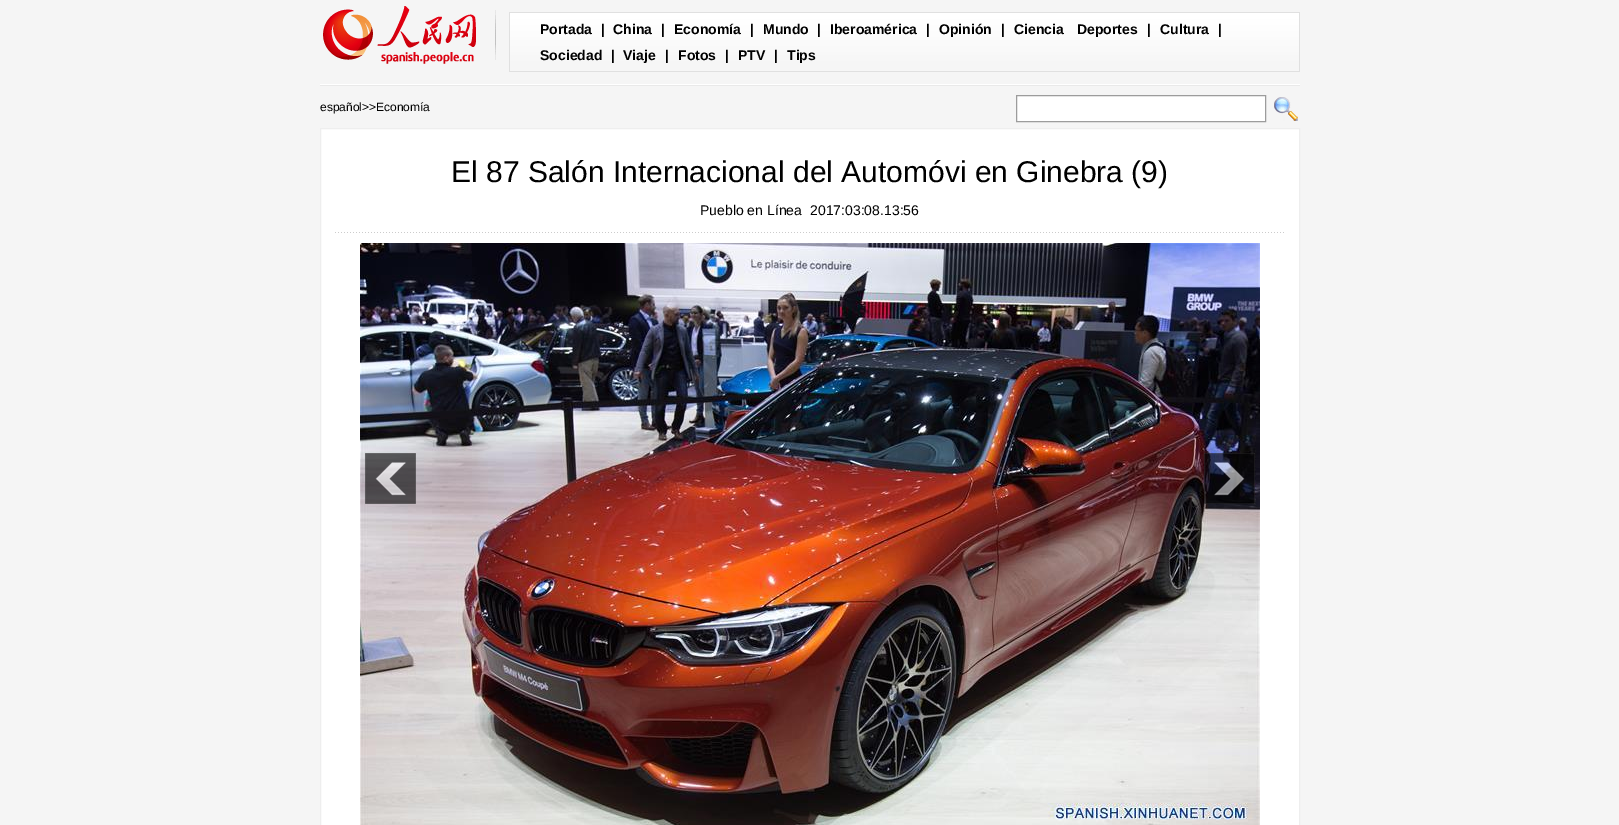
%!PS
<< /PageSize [1619 825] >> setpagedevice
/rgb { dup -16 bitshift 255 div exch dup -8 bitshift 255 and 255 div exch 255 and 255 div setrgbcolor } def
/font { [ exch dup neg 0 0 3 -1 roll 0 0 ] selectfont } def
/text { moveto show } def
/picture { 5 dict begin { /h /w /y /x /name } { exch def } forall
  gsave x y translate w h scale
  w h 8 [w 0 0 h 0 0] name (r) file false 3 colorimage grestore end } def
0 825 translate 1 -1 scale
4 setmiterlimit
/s1 { /LiberationSans-Bold 14 font 16#000000 rgb } def
/s2 { /LiberationSans-Regular 12 font 16#000000 rgb } def
/s3 { /LiberationSans-Regular 30 font 16#000000 rgb } def
/s4 { /LiberationSans-Regular 14 font 16#000000 rgb } def
16#F5F5F5 rgb
0 0 1619 825 rectfill
(pic1.raw) 320 84 980 2 picture
(pic2.raw) 495 10 1 50 picture
(pic3.raw) 323 6 153 58 picture
(pic4.raw) 510 12 789 60 picture
16#E0E0E0 rgb
1299 12 1 60 rectfill
509 12 1 60 rectfill
s1
(Portada) 540 34 text
(|) 601 34 text
(China) 613 34 text
(|) 661 34 text
(Economía) 674 34 text
(|) 750 34 text
(Mundo) 763 34 text
(|) 817 34 text
(Iberoamérica) 830 34 text
(|) 926 34 text
(Opinión) 939 34 text
(|) 1001 34 text
(Ciencia) 1014 34 text
(Deportes) 1077 34 text
(|) 1147 34 text
(Cultura) 1160 34 text
(|) 1218 34 text
(Sociedad) 540 60 text
(|) 611 60 text
(Viaje) 623 60 text
(|) 665 60 text
(Fotos) 678 60 text
(|) 725 60 text
(PTV) 738 60 text
(|) 774 60 text
(Tips) 787 60 text
s2
(español>>Economía) 320 111 text
16#FFFFFF rgb
1016.5 95.5 moveto 1265.5 95.5 lineto 1265.5 121.5 lineto 1016.5 121.5 lineto closepath gsave fill grestore
16#9C9C9C rgb
stroke
(pic5.raw) 1274 97 24 24 picture
16#FFFFFF rgb
320.5 128.5 moveto 1299.5 128.5 lineto 1299.5 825.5 lineto 320.5 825.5 lineto closepath gsave fill grestore
16#EEEEEE rgb
stroke
s3
(El 87 Salón Internacional del Automóvi en Ginebra \(9\)) 451 182 text
s4
(Pueblo en Línea) 700 215 text
(2017:03:08.13:56) 810 215 text
(pic6.raw) 335 232 949 1 picture
(pic7.raw) 360 243 900 582 picture
(pic8.raw) 365 453 51 51 picture
(pic9.raw) 1204 453 51 51 picture
showpage
